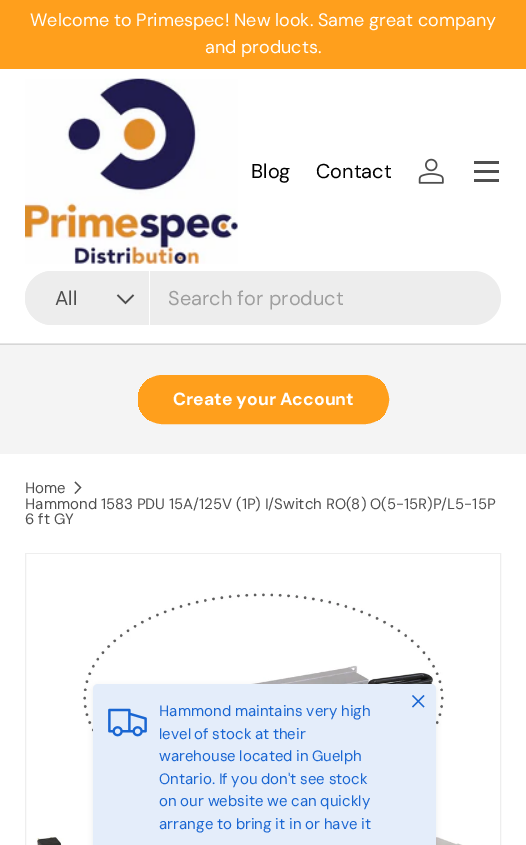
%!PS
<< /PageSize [526 845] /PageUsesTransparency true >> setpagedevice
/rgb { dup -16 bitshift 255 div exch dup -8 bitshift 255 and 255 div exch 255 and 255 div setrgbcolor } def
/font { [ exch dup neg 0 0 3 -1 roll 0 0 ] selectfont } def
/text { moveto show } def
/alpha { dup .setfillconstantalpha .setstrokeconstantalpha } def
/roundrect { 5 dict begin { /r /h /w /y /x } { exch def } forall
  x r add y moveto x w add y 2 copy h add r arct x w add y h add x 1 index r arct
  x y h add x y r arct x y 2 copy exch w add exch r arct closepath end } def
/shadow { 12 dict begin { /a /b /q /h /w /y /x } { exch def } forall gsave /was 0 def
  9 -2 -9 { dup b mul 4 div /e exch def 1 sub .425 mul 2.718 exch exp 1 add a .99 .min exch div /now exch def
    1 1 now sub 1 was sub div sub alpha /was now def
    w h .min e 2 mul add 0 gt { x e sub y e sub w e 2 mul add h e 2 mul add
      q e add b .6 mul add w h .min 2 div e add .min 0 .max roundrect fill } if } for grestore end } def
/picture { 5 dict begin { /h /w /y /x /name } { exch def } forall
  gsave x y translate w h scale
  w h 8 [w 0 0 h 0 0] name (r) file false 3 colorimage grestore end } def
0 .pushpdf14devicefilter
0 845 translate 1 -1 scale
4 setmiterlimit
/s1 { /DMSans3-Regular 18 font 16#FFFFFF rgb } def
/s2 { /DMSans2-Regular 20 font 16#000000 rgb } def
/s3 { /DMSans2-Regular 20 font 16#4F4F4F rgb } def
/s4 { /DMSans2-Regular 20 font 16#9E9E9E rgb } def
/s5 { /DMSans-Bold 17.6 font 16#FFFFFF rgb } def
/s6 { /DMSans-Regular 15 font 16#4F4F4F rgb } def
16#FFFFFF rgb
0 0 526 845 rectfill
16#FF9F1C rgb
0 0 526 69 rectfill
s1
(Welcome to Primespec! New look. Same great company) 30 26 text
(and products.) 205 53 text
16#E5E5E5 rgb
0 343 526 1 rectfill
(pic1.raw) 25 78 213 186 picture
s2
(Blog) 251 178 text
(Contact) 316 178 text
(pic2.raw) 418 158 26 26 picture
16#4F4F4F rgb
474 161 25 3 rectfill
474 179 25 3 rectfill
474 170 25 3 rectfill
16#EDEDED rgb
25 271 476 54 27 roundrect fill
52 271 moveto 150 271 lineto 150 325 lineto 52 325 lineto 37 325 25 313 25 298 curveto 25 283 37 271 52 271 curveto closepath fill
16#FFFFFF rgb
149 271 1 54 rectfill
s3
(All) 55 305 text
1.6 setlinewidth
133.5 295 moveto 125.5 303 lineto 117.5 295 lineto stroke
s4
(Search for product) 168 305 text
16#F4F4F4 rgb
0 345 526 109 rectfill
16#D6D6D6 rgb
0 344 526 1 rectfill
gsave
138 375 251 49 24.5 roundrect clip newpath
gsave 138 378 moveto 386 378 lineto 386 421 lineto 138 421 lineto closepath clip newpath
<< /ShadingType 2 /ColorSpace /DeviceRGB /Coords [-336 311 370 487] /Extend [true true] /Function << /FunctionType 3 /Domain [0 1] /Functions [<< /FunctionType 2 /Domain [0 1] /C0 [1 0.706 0.302] /C1 [1 0.706 0.302] /N 1 >> << /FunctionType 2 /Domain [0 1] /C0 [1 0.624 0.11] /C1 [1 0.624 0.11] /N 1 >>] /Bounds [0.6] /Encode [0 1 0 1] >> >> shfill grestore
grestore
16#FF9F1C rgb
3 setlinewidth
139.5 376.5 248 46 23 roundrect stroke
s5
(Create your Account) 173 405 text
s6
(Home) 25 493 text
1.1 setlinewidth
75 482 moveto 80.5 487.5 lineto 75 493.5 lineto stroke
25 509 moveto -0.25 0 32 (Hammond 1583 PDU 15A/125V \(1P\) I/Switch RO\(8\) O\(5-15R\)P/L5-15P) widthshow
(6 ft GY) 25 524 text
16#F4F4F4 rgb
26 554 1 291 rectfill
16#EEEEEE rgb
1 setlinewidth
25.5 553.5 475 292 rectstroke
(pic3.raw) 26 554 474 291 picture
16#212B36 rgb
93 686 343 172 5 2.5 0.08 shadow
16#E4EDFA rgb
93 684 343 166 5 roundrect fill
16#1A66D2 rgb
1.2 setlinewidth
1 setlinejoin
412.5 707 moveto 424 695.5 lineto 412.5 695.5 moveto 424 707 lineto stroke
(pic4.raw) 108 708 39 29 picture
159 716 moveto -0.25 0 32 (Hammond maintains very high) widthshow
159 739 moveto -0.5 0 32 (level of stock at their) widthshow
159 761 moveto -0.5 0 32 (warehouse located in Guelph) widthshow
159 784 moveto -0.25 0 32 (Ontario. If you don't see stock) widthshow
159 806 moveto -0.25 0 32 (on our website we can quickly) widthshow
159 829 moveto -0.25 0 32 (arrange to bring it in or have it) widthshow
.poppdf14devicefilter showpage
